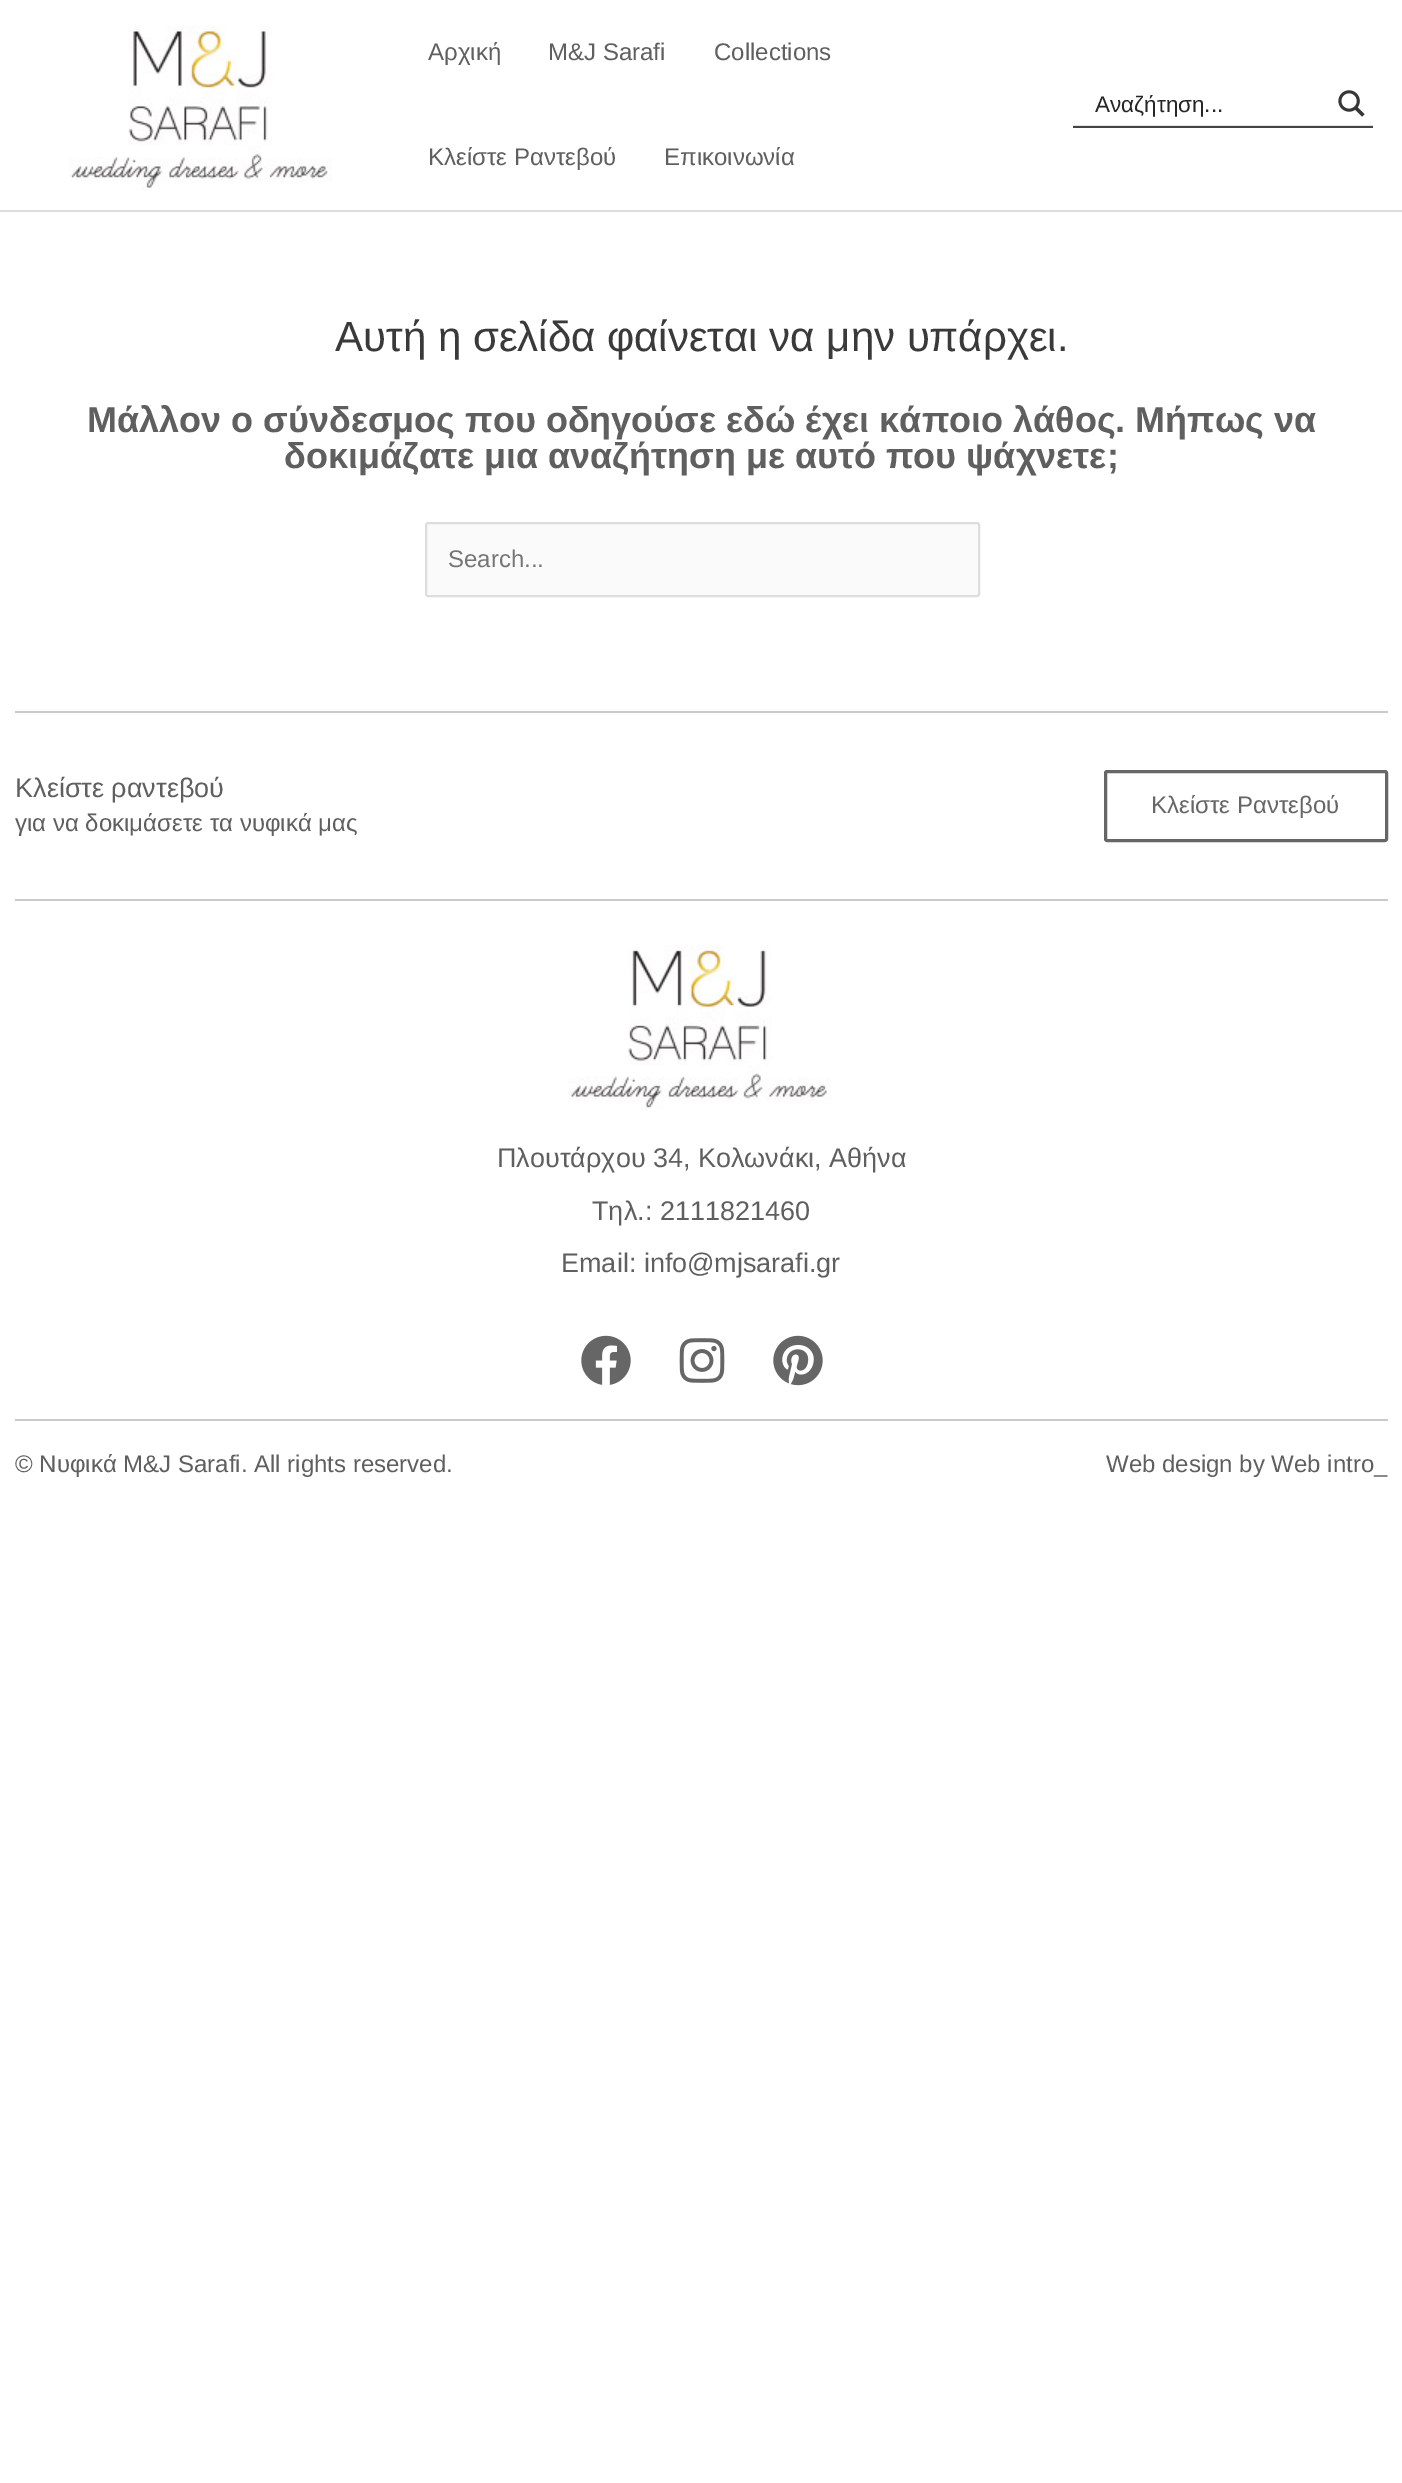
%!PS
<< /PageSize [1402 2483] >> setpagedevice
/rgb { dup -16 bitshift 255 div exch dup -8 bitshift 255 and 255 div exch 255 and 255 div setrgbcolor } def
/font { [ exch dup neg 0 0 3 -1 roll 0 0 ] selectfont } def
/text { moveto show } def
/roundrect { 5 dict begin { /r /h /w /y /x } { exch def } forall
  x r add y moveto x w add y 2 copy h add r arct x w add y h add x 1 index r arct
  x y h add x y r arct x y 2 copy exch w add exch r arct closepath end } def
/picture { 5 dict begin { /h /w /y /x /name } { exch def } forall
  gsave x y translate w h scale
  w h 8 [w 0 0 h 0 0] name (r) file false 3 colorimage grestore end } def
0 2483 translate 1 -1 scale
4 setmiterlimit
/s1 { /LiberationSans-Regular 24 font 16#5F5F5F rgb } def
/s2 { /LiberationSans-Regular 22.5 font 16#262626 rgb } def
/s3 { /LiberationSans-Regular 42 font 16#3A3A3A rgb } def
/s4 { /LiberationSans-Bold 36 font 16#5F5F5F rgb } def
/s5 { /LiberationSans-Regular 24 font 16#757575 rgb } def
/s6 { /LiberationSans-Regular 27 font 16#5F5F5F rgb } def
/s7 { /LiberationSans-Regular 24 font 16#666666 rgb } def
16#FFFFFF rgb
0 0 1402 2483 rectfill
16#DDDDDD rgb
0 210 1402 2 rectfill
(pic1.raw) 69 25 263 165 picture
s1
(Αρχική) 428 60 text
(M&J Sarafi) 548 60 text
(Collections) 714 60 text
(Κλείστε Ραντεβού) 428 165 text
(Επικοινωνία) 664 165 text
16#444444 rgb
1073 126 300 2 rectfill
16#E4E4E4 rgb
1073 124 moveto 1073 126 lineto 1373 126 lineto 1373 84 lineto 1372 84 lineto 1372 124 lineto closepath fill
16#FFFFFF rgb
1073 84 300 41 rectfill
s2
(Αναζήτηση...) 1095 112 text
(pic2.raw) 1338 90 27 27 picture
s3
(Αυτή η σελίδα φαίνεται να μην υπάρχει.) 335 351 text
s4
(Μάλλον ο σύνδεσμος που οδηγούσε εδώ έχει κάποιο λάθος. Μήπως να) 87 432 text
(δοκιμάζατε μια αναζήτηση με αυτό που ψάχνετε;) 284 468 text
16#FAFAFA rgb
426 523 553 73 2 roundrect gsave fill grestore
16#DDDDDD rgb
2 setlinewidth
stroke
s5
(Search...) 448 567 text
16#CACACA rgb
15 711 1373 2 rectfill
s6
(Κλείστε ραντεβού) 15 797 text
s1
(για να δοκιμάσετε τα νυφικά μας) 15 831 text
16#666666 rgb
3 setlinewidth
1105.5 771.5 281 69 1.5 roundrect stroke
(Κλείστε Ραντεβού) 1151 813 text
16#CACACA rgb
15 899 1373 2 rectfill
(pic3.raw) 568 945 263 165 picture
s6
(Πλουτάρχου 34, Κολωνάκι, Αθήνα) 497 1167 text
(Τηλ.: 2111821460) 592 1220 text
(Email: info@mjsarafi.gr) 561 1272 text
(pic4.raw) 581 1335 50 50 picture
(pic5.raw) 679 1338 46 45 picture
(pic6.raw) 773 1335 50 51 picture
16#CACACA rgb
15 1419 1373 2 rectfill
s1
(© Νυφικά M&J Sarafi. All rights reserved.) 15 1472 text
(Web design by Web intro_) 1106 1472 text
showpage
